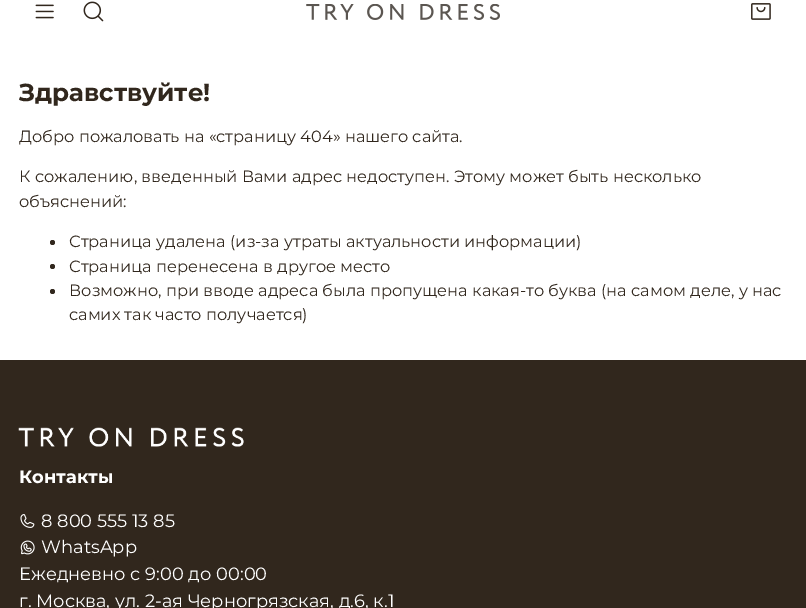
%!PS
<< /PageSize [806 608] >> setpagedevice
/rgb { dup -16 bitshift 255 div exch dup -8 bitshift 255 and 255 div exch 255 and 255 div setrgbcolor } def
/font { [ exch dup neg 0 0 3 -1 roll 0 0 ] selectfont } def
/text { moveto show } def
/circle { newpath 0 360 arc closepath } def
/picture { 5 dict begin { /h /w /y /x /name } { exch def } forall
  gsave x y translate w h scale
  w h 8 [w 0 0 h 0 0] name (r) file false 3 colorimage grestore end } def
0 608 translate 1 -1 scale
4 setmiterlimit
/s1 { /Montserrat-Bold 24.5 font 16#31271D rgb } def
/s2 { /Montserrat-Regular 16.25 font 16#31271D rgb } def
/s3 { /Montserrat-Bold 17.9 font 16#FFFFFF rgb } def
/s4 { /Montserrat-Regular 17.9 font 16#FFFFFF rgb } def
16#FFFFFF rgb
0 0 806 608 rectfill
(pic1.raw) 35 4 19 15 picture
(pic2.raw) 83 1 21 21 picture
(pic3.raw) 306 4 194 16 picture
(pic4.raw) 751 3 20 17 picture
s1
(Здравствуйте!) 19 101 text
s2
(Добро пожаловать на «страницу 404» нашего сайта.) 19 142 text
(К сожалению, введенный Вами адрес недоступен. Этому может быть несколько) 19 182 text
(объяснений:) 19 207 text
52.5 242.5 2.5 circle fill
(Страница удалена \(из-за утраты актуальности информации\)) 69 247 text
52.5 266.5 2.5 circle fill
(Страница перенесена в другое место) 69 272 text
52.5 291.5 2.5 circle fill
(Возможно, при вводе адреса была пропущена какая-то буква \(на самом деле, у нас) 69 296 text
(самих так часто получается\)) 69 320 text
0 360 806 248 rectfill
(pic5.raw) 18 427 226 20 picture
s3
(Контакты) 19 483 text
(pic6.raw) 20 514 15 14 picture
s4
(8 800 555 13 85) 41 527 text
(pic7.raw) 20 540 15 15 picture
(WhatsApp) 41 553 text
(Ежедневно с 9:00 до 00:00) 19 580 text
(г. Москва, ул. 2-ая Черногрязская, д.6, к.1) 19 607 text
showpage
